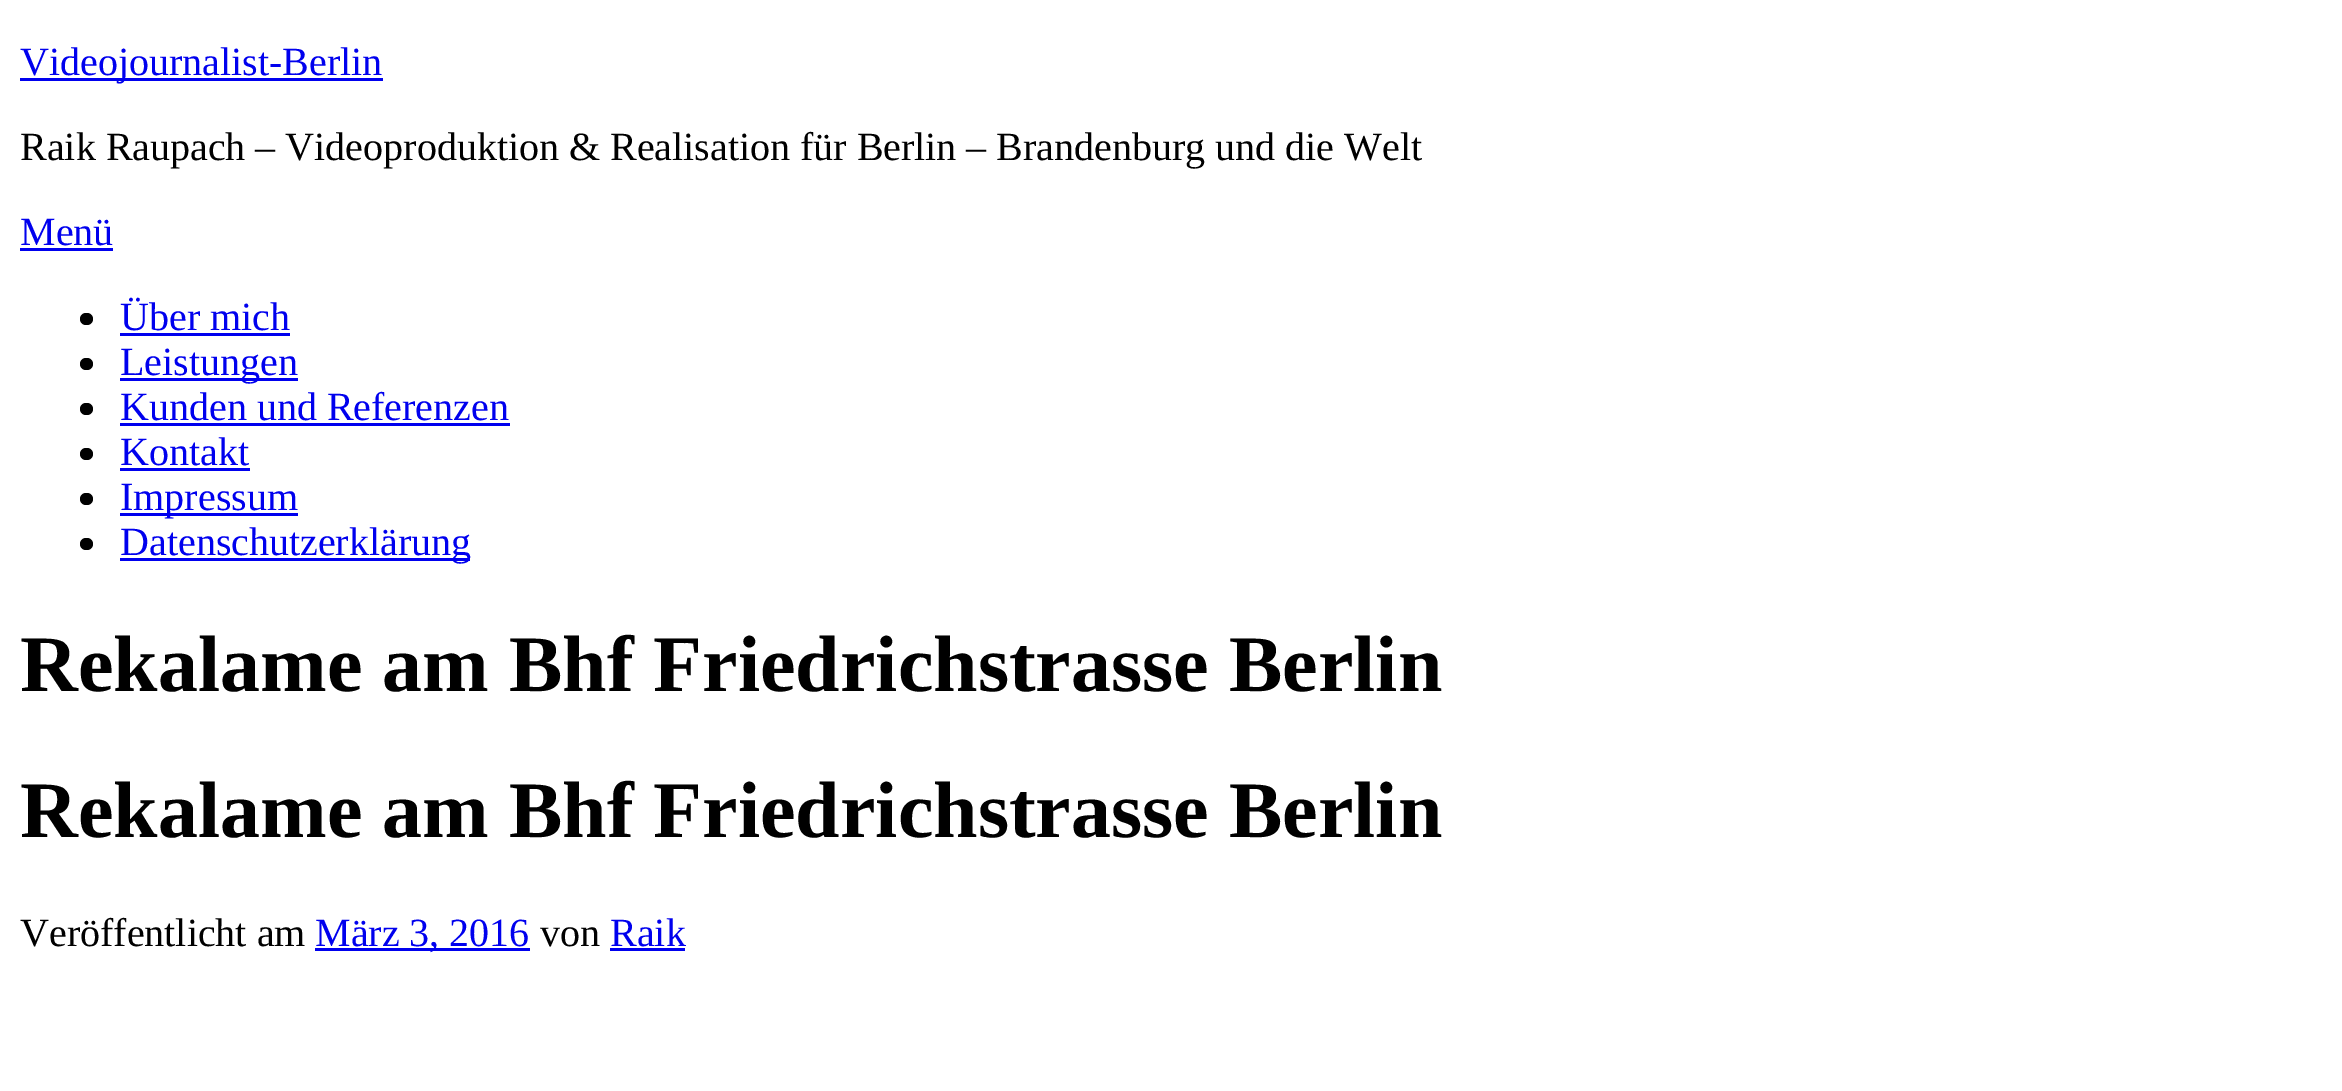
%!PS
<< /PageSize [2342 1091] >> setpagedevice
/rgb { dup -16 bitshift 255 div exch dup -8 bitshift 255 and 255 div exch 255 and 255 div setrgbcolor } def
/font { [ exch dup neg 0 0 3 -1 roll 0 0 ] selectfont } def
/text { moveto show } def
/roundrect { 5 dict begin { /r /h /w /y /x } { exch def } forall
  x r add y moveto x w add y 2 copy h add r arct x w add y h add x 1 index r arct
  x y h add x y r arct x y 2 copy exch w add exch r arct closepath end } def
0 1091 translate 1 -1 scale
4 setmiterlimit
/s1 { /LiberationSerif-Regular 40 font 16#0000EE rgb } def
/s2 { /LiberationSerif-Regular 40 font 16#000000 rgb } def
/s3 { /LiberationSerif-Bold 80 font 16#000000 rgb } def
16#FFFFFF rgb
0 0 2342 1091 rectfill
16#0000EE rgb
20 78 363 3 rectfill
s1
(Videojournalist-Berlin) 20 75 text
s2
(Raik Raupach – Videoproduktion & Realisation für Berlin – Brandenburg und die Welt) 20 160 text
s1
(Menü) 20 245 text
20 248 93 3 rectfill
16#000000 rgb
80 313 13 12 6 roundrect fill
s1
(Über mich) 120 330 text
120 333 170 3 rectfill
16#000000 rgb
80 358 13 12 6 roundrect fill
16#0000EE rgb
120 378 178 3 rectfill
(Leistungen) 120 375 text
16#000000 rgb
80 403 13 12 6 roundrect fill
s1
(Kunden und Referenzen) 120 420 text
120 423 390 3 rectfill
16#000000 rgb
80 448 13 12 6 roundrect fill
s1
(Kontakt) 120 465 text
120 468 130 3 rectfill
16#000000 rgb
80 493 13 12 6 roundrect fill
16#0000EE rgb
120 513 178 3 rectfill
(Impressum) 120 510 text
16#000000 rgb
80 538 13 12 6 roundrect fill
16#0000EE rgb
120 558 350 3 rectfill
(Datenschutzerklärung) 120 555 text
s3
(Rekalame am Bhf Friedrichstrasse Berlin) 20 691 text
(Rekalame am Bhf Friedrichstrasse Berlin) 20 837 text
s2
(Veröffentlicht am) 20 946 text
16#0000EE rgb
315 948 215 3 rectfill
(März 3, 2016) 315 946 text
s2
(von) 540 946 text
s1
(Raik) 610 946 text
610 948 75 3 rectfill
showpage
